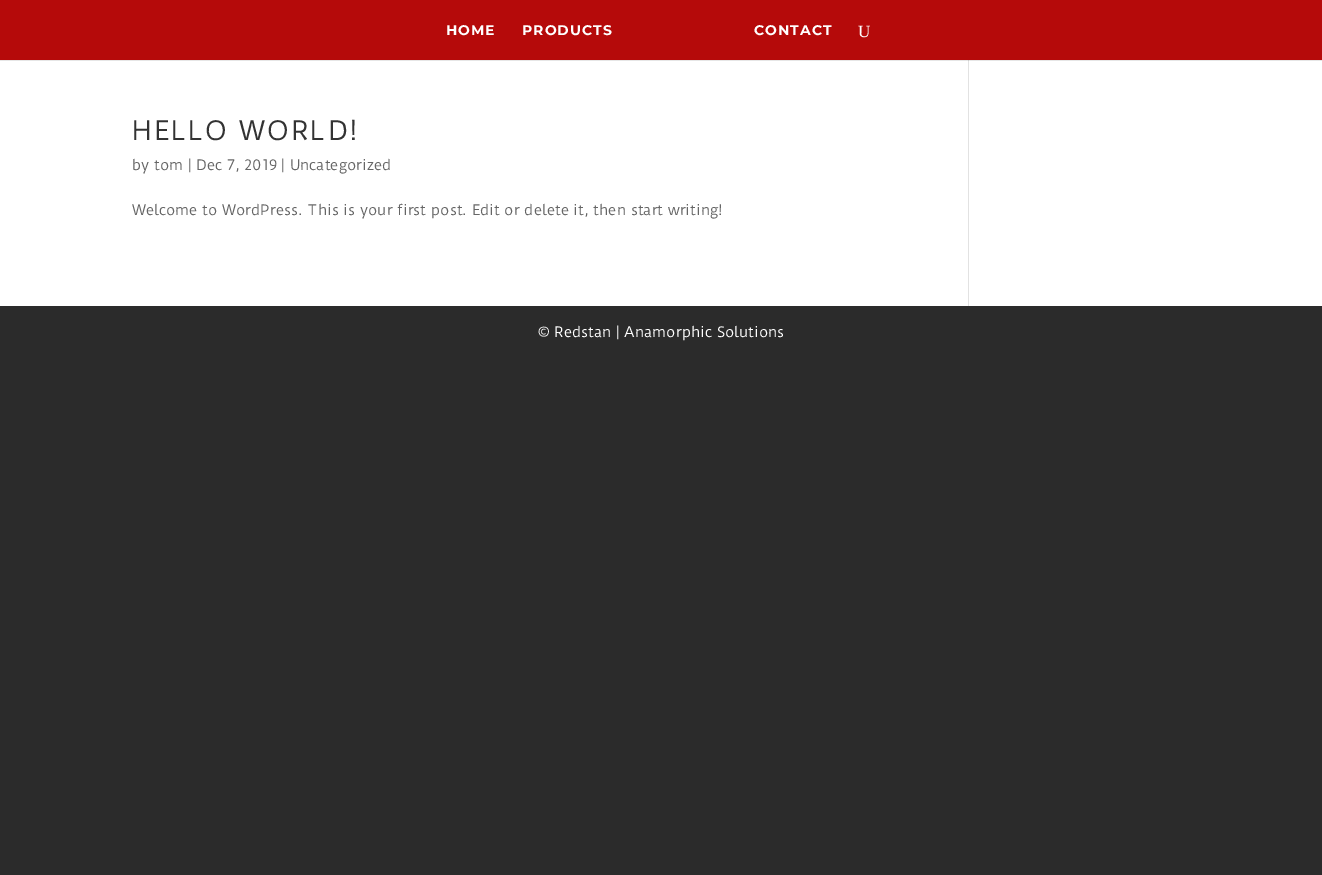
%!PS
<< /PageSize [1322 875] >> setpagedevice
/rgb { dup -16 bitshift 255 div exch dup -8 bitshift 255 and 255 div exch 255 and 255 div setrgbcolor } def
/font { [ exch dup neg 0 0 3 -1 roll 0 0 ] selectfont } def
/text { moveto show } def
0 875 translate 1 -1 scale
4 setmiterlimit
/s1 { /LiberationSerif-Regular 17 font 16#FFFFFF rgb } def
/s2 { /DuruSans-Regular 14 font 16#666666 rgb } def
/s3 { /DuruSans-Regular 14 font 16#FFFFFF rgb } def
16#2B2B2B rgb
0 0 1322 875 rectfill
16#B50A0A rgb
0 0 1322 60 rectfill
/Montserrat-Thin 14 font
16#FFFFFF rgb
446 35 moveto 1 0 (HOME) ashow
522 35 moveto 1 0 (PRODUCTS) ashow
754 35 moveto 1 0 (CONTACT) ashow
s1
(U) 858 37 text
0 61 1322 245 rectfill
16#E6E6E6 rgb
0 60 1322 1 rectfill
/DuruSans-Regular 26 font
16#333333 rgb
132 140 moveto 2 0 (HELLO WORLD!) ashow
s2
(by tom | Dec 7, 2019 | Uncategorized) 132 170 text
(Welcome to WordPress. This is your first post. Edit or delete it, then start writing!) 132 215 text
16#E2E2E2 rgb
968 60 1 246 rectfill
16#CBCBCB rgb
968 60 1 1 rectfill
s3
(© Redstan | Anamorphic Solutions) 538 337 text
showpage
